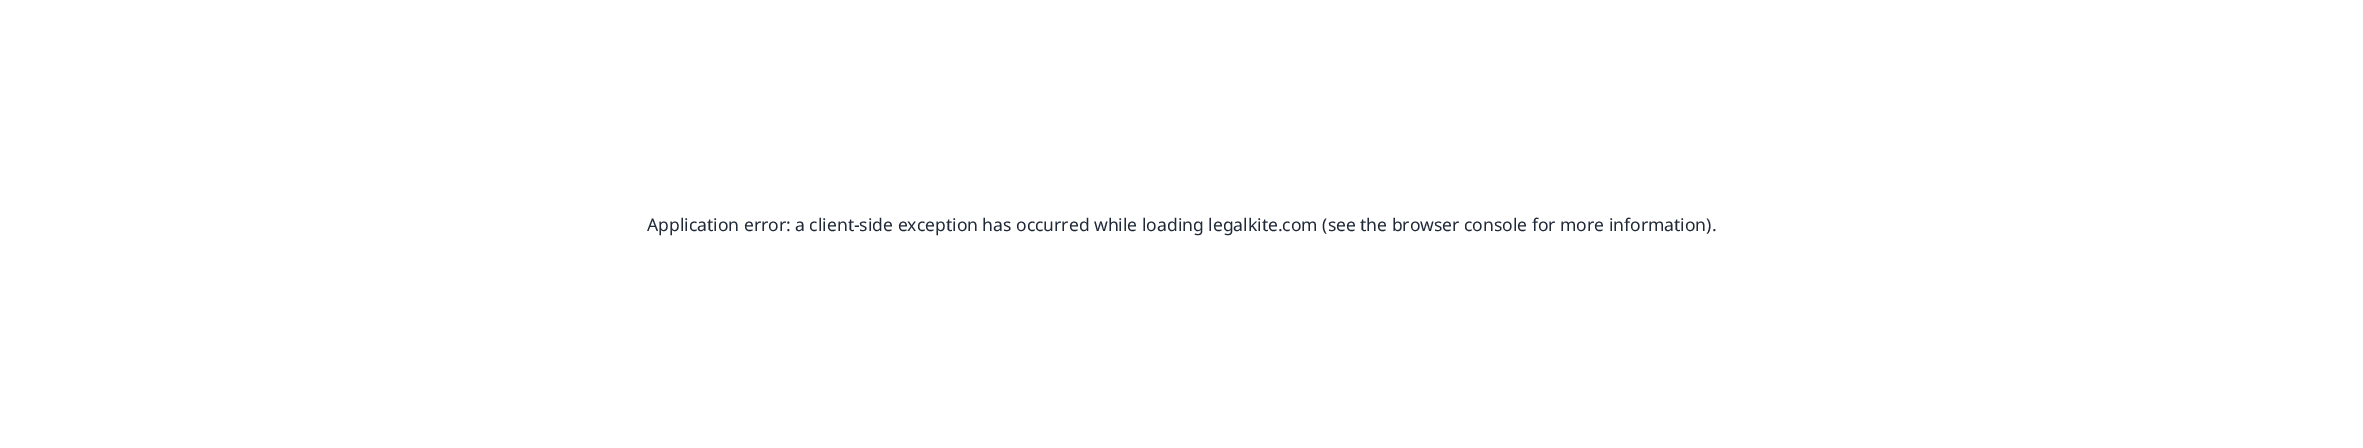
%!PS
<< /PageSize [2363 448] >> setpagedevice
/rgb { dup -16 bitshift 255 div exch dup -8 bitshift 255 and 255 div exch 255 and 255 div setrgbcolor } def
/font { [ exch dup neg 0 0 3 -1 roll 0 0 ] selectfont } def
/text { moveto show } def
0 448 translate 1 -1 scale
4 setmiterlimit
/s1 { /NotoSans-Regular 17.5 font 16#1F2937 rgb } def
16#FFFFFF rgb
0 0 2363 448 rectfill
s1
(Application error: a client-side exception has occurred while loading legalkite.com \(see the browser console for more information\).) 647 231 text
showpage
